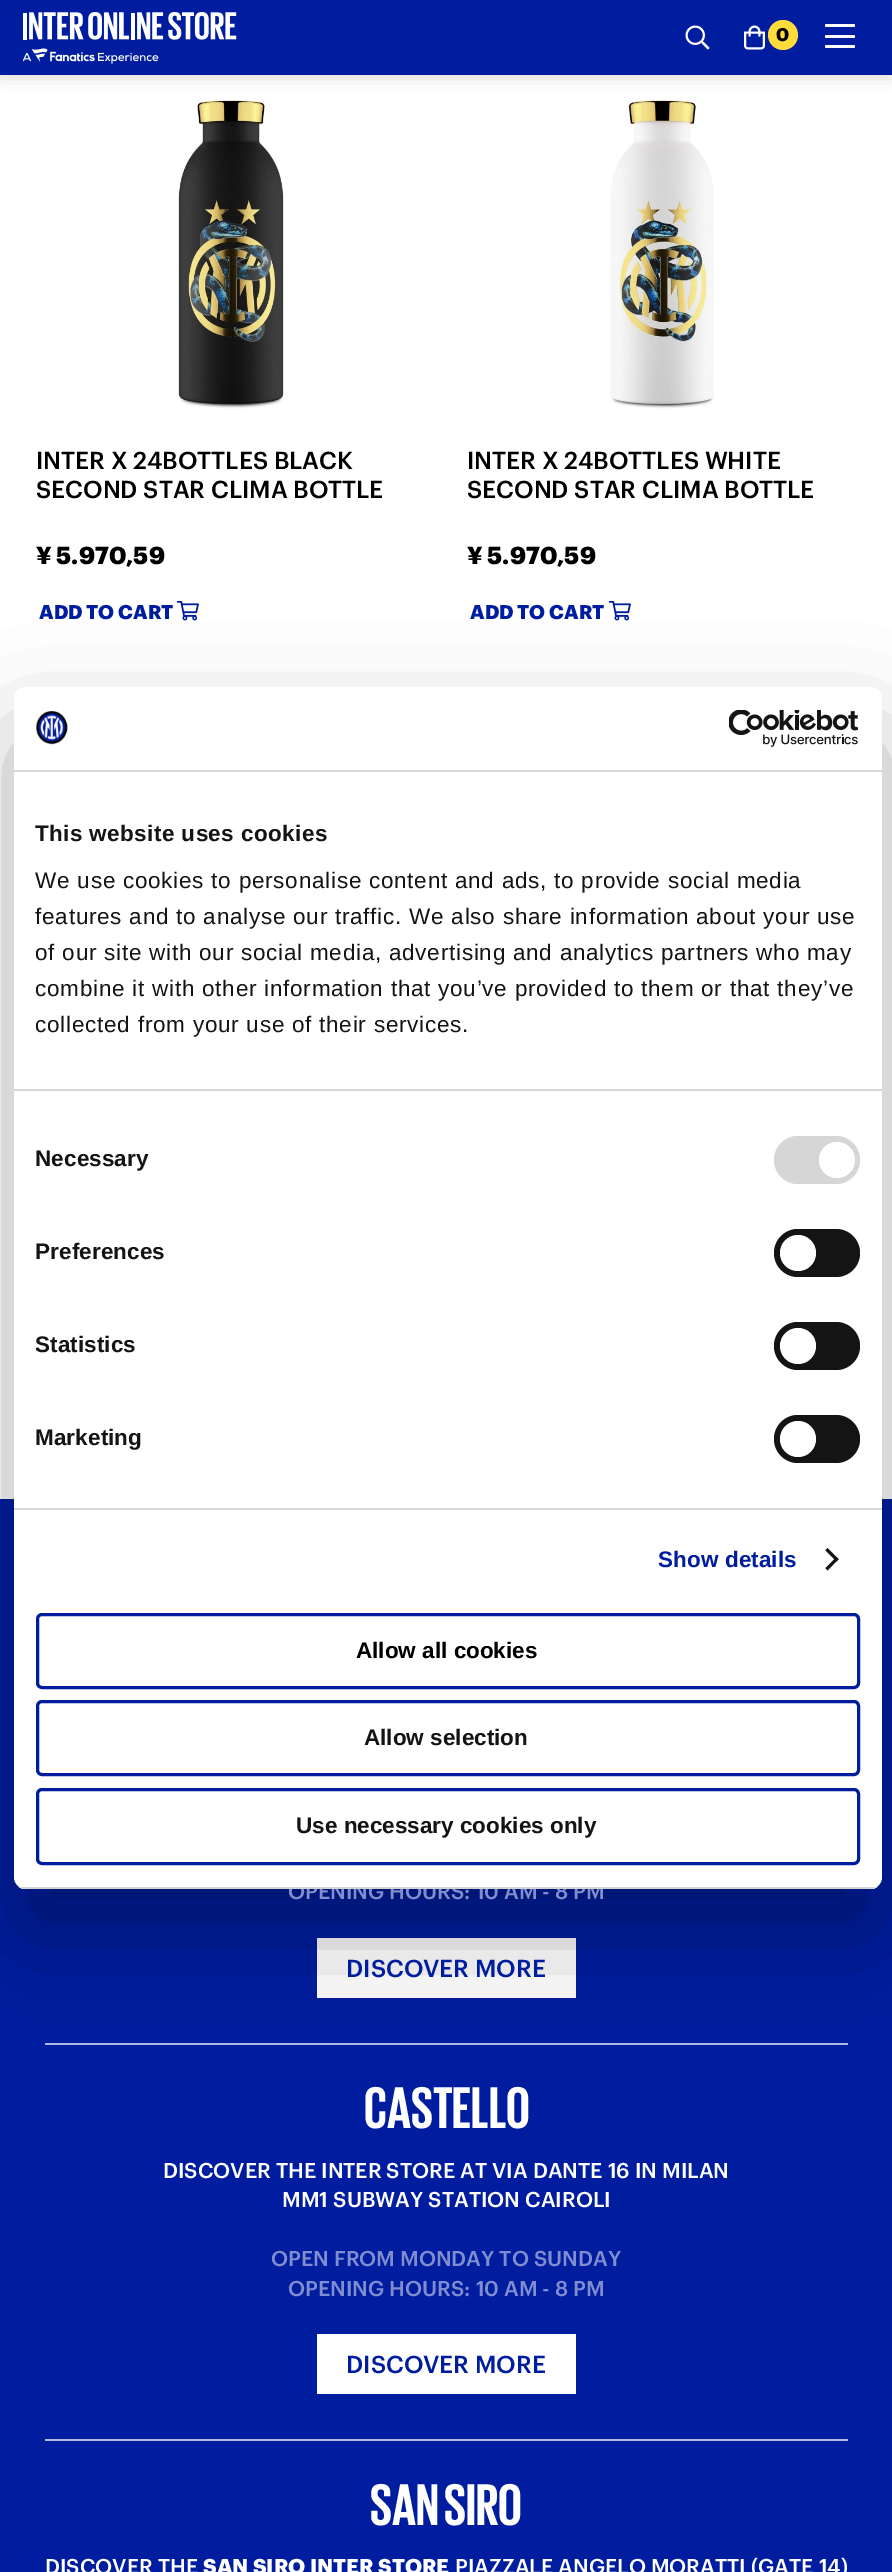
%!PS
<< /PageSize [892 2572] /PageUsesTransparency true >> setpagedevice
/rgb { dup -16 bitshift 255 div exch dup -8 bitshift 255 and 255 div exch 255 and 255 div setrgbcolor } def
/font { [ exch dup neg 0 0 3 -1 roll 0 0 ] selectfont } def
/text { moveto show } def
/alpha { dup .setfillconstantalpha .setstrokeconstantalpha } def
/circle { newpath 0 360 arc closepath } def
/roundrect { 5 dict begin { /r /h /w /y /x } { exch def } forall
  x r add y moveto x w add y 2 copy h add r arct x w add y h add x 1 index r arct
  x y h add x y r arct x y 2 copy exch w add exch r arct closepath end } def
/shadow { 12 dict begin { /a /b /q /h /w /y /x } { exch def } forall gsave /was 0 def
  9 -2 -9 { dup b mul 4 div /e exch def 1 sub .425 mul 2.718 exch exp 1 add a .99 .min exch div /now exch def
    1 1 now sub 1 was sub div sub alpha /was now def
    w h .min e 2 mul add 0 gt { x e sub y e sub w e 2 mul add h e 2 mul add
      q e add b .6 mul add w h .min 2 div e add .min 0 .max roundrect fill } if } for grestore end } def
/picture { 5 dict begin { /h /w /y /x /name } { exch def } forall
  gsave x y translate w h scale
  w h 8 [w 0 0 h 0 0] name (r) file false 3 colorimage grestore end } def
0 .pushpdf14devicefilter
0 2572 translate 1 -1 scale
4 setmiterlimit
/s1 { /Graphik-Bold 18 font 16#000000 rgb } def
/s2 { /Graphik-Medium 24 font 16#000000 rgb } def
/s3 { /Graphik-Bold 24 font 16#000000 rgb } def
/s4 { /Graphik-Bold 19.5 font 16#001DA0 rgb } def
/s5 { /Graphik-Medium 21 font 16#808ED0 rgb } def
/s6 { /LiberationSans-Bold 22.5 font 16#000000 rgb } def
/s7 { /LiberationSans-Bold 22.5 font 16#141414 rgb } def
/s8 { /Graphik-Medium 24 font 16#001DA0 rgb } def
/s9 { /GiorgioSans-Bold 60 font 16#FFFFFF rgb } def
/s10 { /Graphik-Medium 21 font 16#FFFFFF rgb } def
/s11 { /Graphik-Bold 21 font 16#FFFFFF rgb } def
16#FFFFFF rgb
0 0 892 2572 rectfill
(pic4.raw) 178 98 106 311 picture
(pic6.raw) 610 98 104 311 picture
16#000000 rgb
0 0 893 75 0 7.5 0.2 shadow
16#001DA0 rgb
0 0 892 75 rectfill
(pic1.raw) 23 12 214 52 picture
(pic2.raw) 685 25 25 25 picture
(pic3.raw) 744 25 21 25 picture
16#FFDB3C rgb
783 35 15 circle fill
s1
(0) 776 41 text
16#FFFFFF rgb
825 35 30 3 1.5 roundrect fill
825 24 30 3 1.5 roundrect fill
825 45 30 3 1.5 roundrect fill
0.2 alpha
0 75 892 2 rectfill
1 alpha
s2
(INTER X 24BOTTLES BLACK) 36 469 text
(SECOND STAR CLIMA BOTTLE) 36 498 text
s3
(¥ 5.970,59) 36 564 text
s4
(ADD TO CART) 39 619 text
(pic5.raw) 177 600 22 21 picture
s2
(INTER X 24BOTTLES WHITE) 467 469 text
(SECOND STAR CLIMA BOTTLE) 467 498 text
s3
(¥ 5.970,59) 467 564 text
s4
(ADD TO CART) 470 619 text
(pic5.raw) 609 600 22 21 picture
0 1499 892 1073 rectfill
16#B3BBE3 rgb
45 2043 803 2 rectfill
16#FFFFFF rgb
317 1938 259 60 rectfill
16#000000 rgb
14 735 868 1202 12 51 0.3 shadow
s5
(OPENING HOURS: 10 AM - 8 PM) 288 1899 text
16#FFFFFF rgb
14 687 868 1202 12 roundrect fill
16#D6D6D6 rgb
14 770 868 2 rectfill
(pic7.raw) 36 711 32 34 picture
(pic8.raw) 729 710 130 37 picture
14 1089 868 2 rectfill
/LiberationSans-Bold 22.5 font
16#141414 rgb
35 841 moveto 0.4 0 (This website uses cookies) ashow
/LiberationSans-Regular 22.5 font
35 888 moveto 0.75 0 (We use cookies to personalise content and ads, to provide social media) ashow
35 924 moveto 0.75 0 (features and to analyse our traffic. We also share information about your use) ashow
35 960 moveto 0.75 0 (of our site with our social media, advertising and analytics partners who may) ashow
35 996 moveto 0.75 0 (combine it with other information that you’ve provided to them or that they’ve) ashow
35 1032 moveto 0.75 0 (collected from your use of their services.) ashow
16#D6D6D6 rgb
14 1508 868 2 rectfill
/LiberationSans-Bold 22.5 font
16#141414 rgb
35 1166 moveto 0.1 0 (Necessary) ashow
16#D6D6D6 rgb
774 1136 86 48 24 roundrect fill
16#FFFFFF rgb
837 1160 18 circle fill
16#141414 rgb
35 1259 moveto 0.1 0 (Preferences) ashow
774 1229 86 48 24 roundrect fill
16#FFFFFF rgb
798 1253 18 circle fill
16#141414 rgb
35 1352 moveto 0.1 0 (Statistics) ashow
774 1322 86 48 24 roundrect fill
16#FFFFFF rgb
798 1346 18 circle fill
16#141414 rgb
35 1445 moveto 0.1 0 (Marketing) ashow
774 1415 86 48 24 roundrect fill
16#FFFFFF rgb
798 1439 18 circle fill
16#001DA0 rgb
658 1567 moveto 0.1 0 (Show details) ashow
16#141414 rgb
827.5 1548 moveto 838.5 1559 lineto 836.5 1561.5 lineto 825.5 1550.5 lineto closepath fill
836.5 1557 moveto 838.5 1559 lineto 827.5 1570.5 lineto 825.5 1568 lineto closepath fill
gsave
14 687 868 1202 12 roundrect clip newpath
16#D6D6D6 rgb
14 1887 868 2 rectfill
grestore
16#001DA0 rgb
3 setlinewidth
37.5 1614.5 821 73 4.5 roundrect stroke
s6
(Allow all cookies) 356 1658 text
16#001DA0 rgb
37.5 1701.5 821 73 4.5 roundrect stroke
s7
(Allow selection) 364 1745 text
16#001DA0 rgb
37.5 1789.5 821 74 4.5 roundrect stroke
s7
(Use necessary cookies only) 296 1833 text
s8
(DISCOVER MORE) 346 1977 text
16#B3BBE3 rgb
45 2439 803 2 rectfill
s9
(CASTELLO) 364 2128 text
s10
(DISCOVER THE INTER STORE AT VIA DANTE 16 IN MILAN) 163 2178 text
(MM1 SUBWAY STATION CAIROLI) 282 2207 text
s5
(OPEN FROM MONDAY TO SUNDAY) 271 2266 text
(OPENING HOURS: 10 AM - 8 PM) 288 2296 text
16#FFFFFF rgb
317 2334 259 60 rectfill
s8
(DISCOVER MORE) 346 2373 text
s9
(SAN SIRO) 370 2525 text
s10
(DISCOVER THE) 45 2574 text
s11
(SAN SIRO INTER STORE) 203 2574 text
s10
(PIAZZALE ANGELO MORATTI \(GATE 14\)) 455 2574 text
.poppdf14devicefilter showpage
